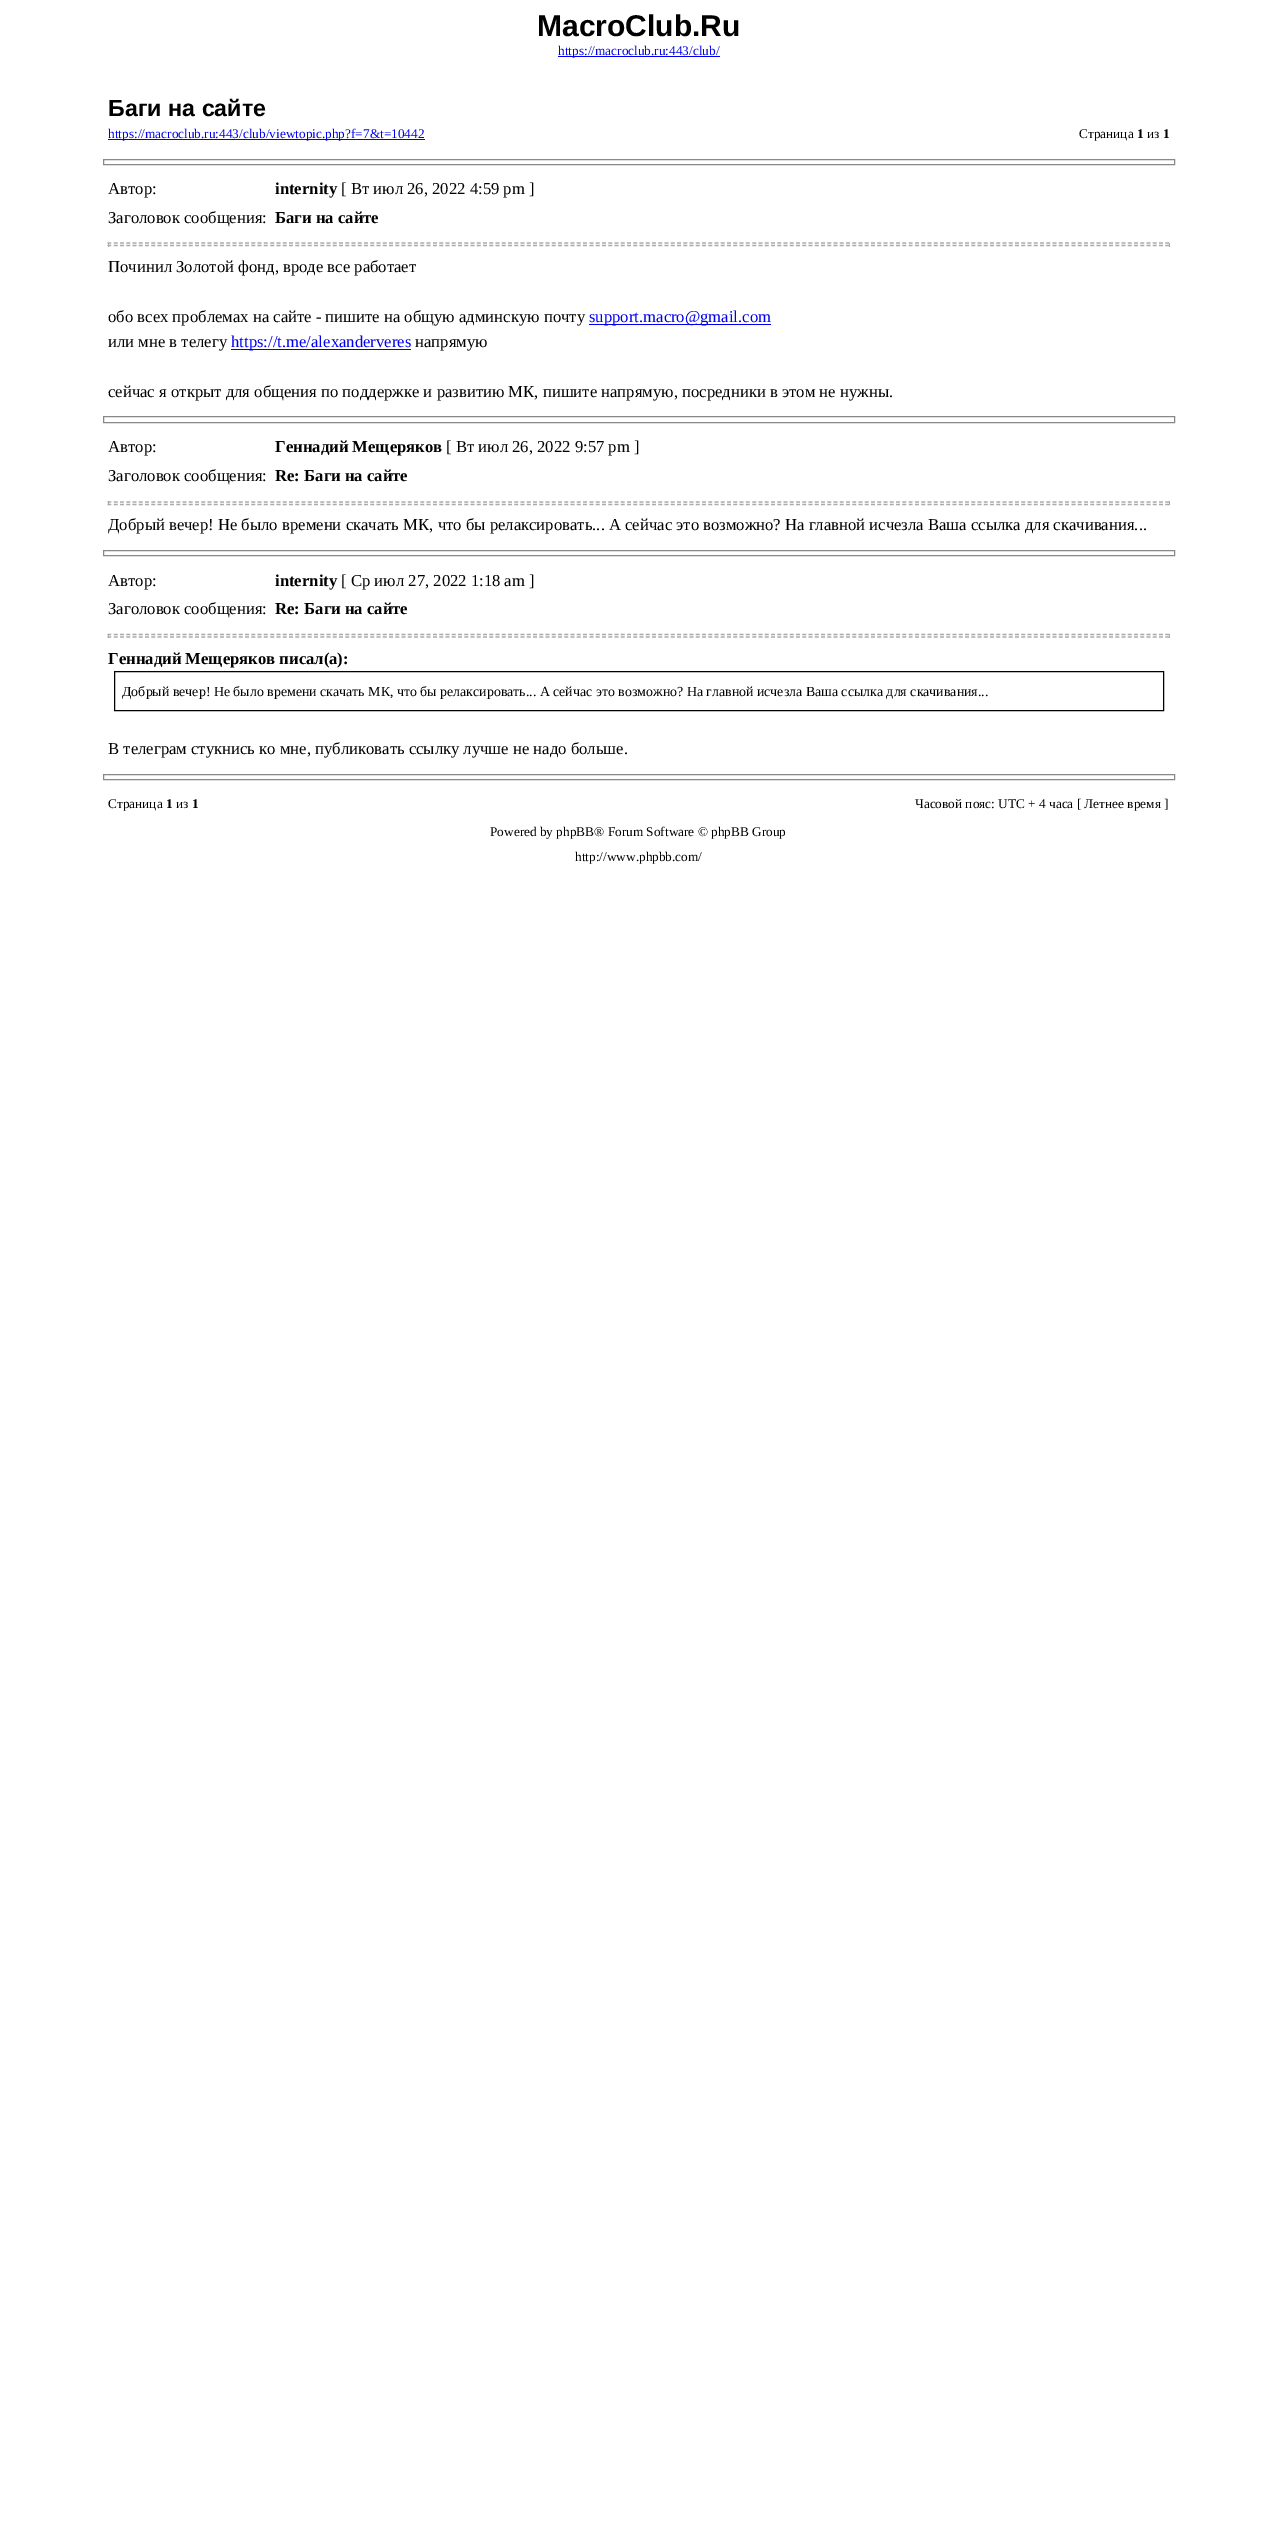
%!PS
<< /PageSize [1277 2524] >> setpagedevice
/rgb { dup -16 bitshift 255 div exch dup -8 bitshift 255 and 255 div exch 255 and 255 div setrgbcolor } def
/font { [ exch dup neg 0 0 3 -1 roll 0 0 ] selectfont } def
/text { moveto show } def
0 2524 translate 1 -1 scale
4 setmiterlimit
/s1 { /LiberationSans-Bold 30 font 16#000000 rgb } def
/s2 { /LiberationSerif-Regular 13.3 font 16#0000EE rgb } def
/s3 { /LiberationSans-Bold 23.25 font 16#000000 rgb } def
/s4 { /LiberationSerif-Regular 13.3 font 16#000000 rgb } def
/s5 { /LiberationSerif-Bold 13.3 font 16#000000 rgb } def
/s6 { /LiberationSerif-Regular 16.67 font 16#000000 rgb } def
/s7 { /LiberationSerif-Bold 16.67 font 16#000000 rgb } def
/s8 { /LiberationSerif-Regular 16.67 font 16#0000EE rgb } def
/s9 { /LiberationSerif-Regular 13.9 font 16#000000 rgb } def
16#FFFFFF rgb
0 0 1277 2524 rectfill
s1
(MacroClub.Ru) 537 36 text
16#0000EE rgb
558 56 162 1 rectfill
s2
(https://macroclub.ru:443/club/) 558 55 text
s3
(Баги на сайте) 108 116 text
16#0000EE rgb
108 139 317 1 rectfill
s2
(https://macroclub.ru:443/club/viewtopic.php?f=7&t=10442) 108 138 text
s4
(Страница) 1079 138 text
s5
(1) 1137 138 text
s4
(из) 1147 138 text
s5
(1) 1163 138 text
16#888888 rgb
103.5 159.5 1071 5 rectstroke
s6
(Автор:) 108 194 text
s7
(internity) 275 194 text
s6
([ Вт июл 26, 2022 4:59 pm ]) 341 194 text
(Заголовок сообщения:) 108 223 text
s7
(Баги на сайте) 275 223 text
16#AAAAAA rgb
1.2 setlinewidth
[3.75 2.51] 0 setdash
107.5 243 moveto 1170 243 lineto stroke
1169 243 1 4 rectfill
107.5 245.5 moveto 1170 245.5 lineto stroke
108 243 1 4 rectfill
s6
(Починил Золотой фонд, вроде все работает) 108 272 text
(обо всех проблемах на сайте - пишите на общую админскую почту) 108 322 text
16#0000EE rgb
589 324 182 1 rectfill
(support.macro@gmail.com) 589 322 text
s6
(или мне в телегу) 108 347 text
16#0000EE rgb
231 349 180 1 rectfill
(https://t.me/alexanderveres) 231 347 text
s6
(напрямую) 415 347 text
(сейчас я открыт для общения по поддержке и развитию МК, пишите напрямую, посредники в этом не нужны.) 108 397 text
16#888888 rgb
1 setlinewidth
[] 0 setdash
103.5 416.5 1071 6 rectstroke
s6
(Автор:) 108 452 text
s7
(Геннадий Мещеряков) 275 452 text
s6
([ Вт июл 26, 2022 9:57 pm ]) 446 452 text
(Заголовок сообщения:) 108 481 text
s7
(Re: Баги на сайте) 275 481 text
16#AAAAAA rgb
1.2 setlinewidth
[3.75 2.51] 0 setdash
107.5 502 moveto 1170 502 lineto stroke
1169 501 1 4 rectfill
107.5 504.5 moveto 1170 504.5 lineto stroke
108 501 1 4 rectfill
s6
(Добрый вечер! Не было времени скачать МК, что бы релаксировать... А сейчас это возможно? На главной исчезла Ваша ссылка для скачивания...) 108 530 text
16#888888 rgb
1 setlinewidth
[] 0 setdash
103.5 550.5 1071 5 rectstroke
s6
(Автор:) 108 586 text
s7
(internity) 275 586 text
s6
([ Ср июл 27, 2022 1:18 am ]) 341 586 text
(Заголовок сообщения:) 108 614 text
s7
(Re: Баги на сайте) 275 614 text
16#AAAAAA rgb
1.2 setlinewidth
[3.75 2.51] 0 setdash
107.5 634.5 moveto 1170 634.5 lineto stroke
1169 634 1 4 rectfill
107.5 637 moveto 1170 637 lineto stroke
108 634 1 4 rectfill
s7
(Геннадий Мещеряков писал\(а\):) 108 664 text
1 setlinewidth
[] 0 setdash
114.5 671.5 1049 39 rectstroke
s9
(Добрый вечер! Не было времени скачать МК, что бы релаксировать... А сейчас это возможно? На главной исчезла Ваша ссылка для скачивания...) 122 696 text
s6
(В телеграм стукнись ко мне, публиковать ссылку лучше не надо больше.) 108 754 text
16#888888 rgb
103.5 774.5 1071 5 rectstroke
s4
(Страница) 108 808 text
s5
(1) 166 808 text
s4
(из) 176 808 text
s5
(1) 192 808 text
s4
(Часовой пояс: UTC + 4 часа [ Летнее время ]) 915 808 text
(Powered by phpBB® Forum Software © phpBB Group) 490 836 text
(http://www.phpbb.com/) 575 861 text
showpage
